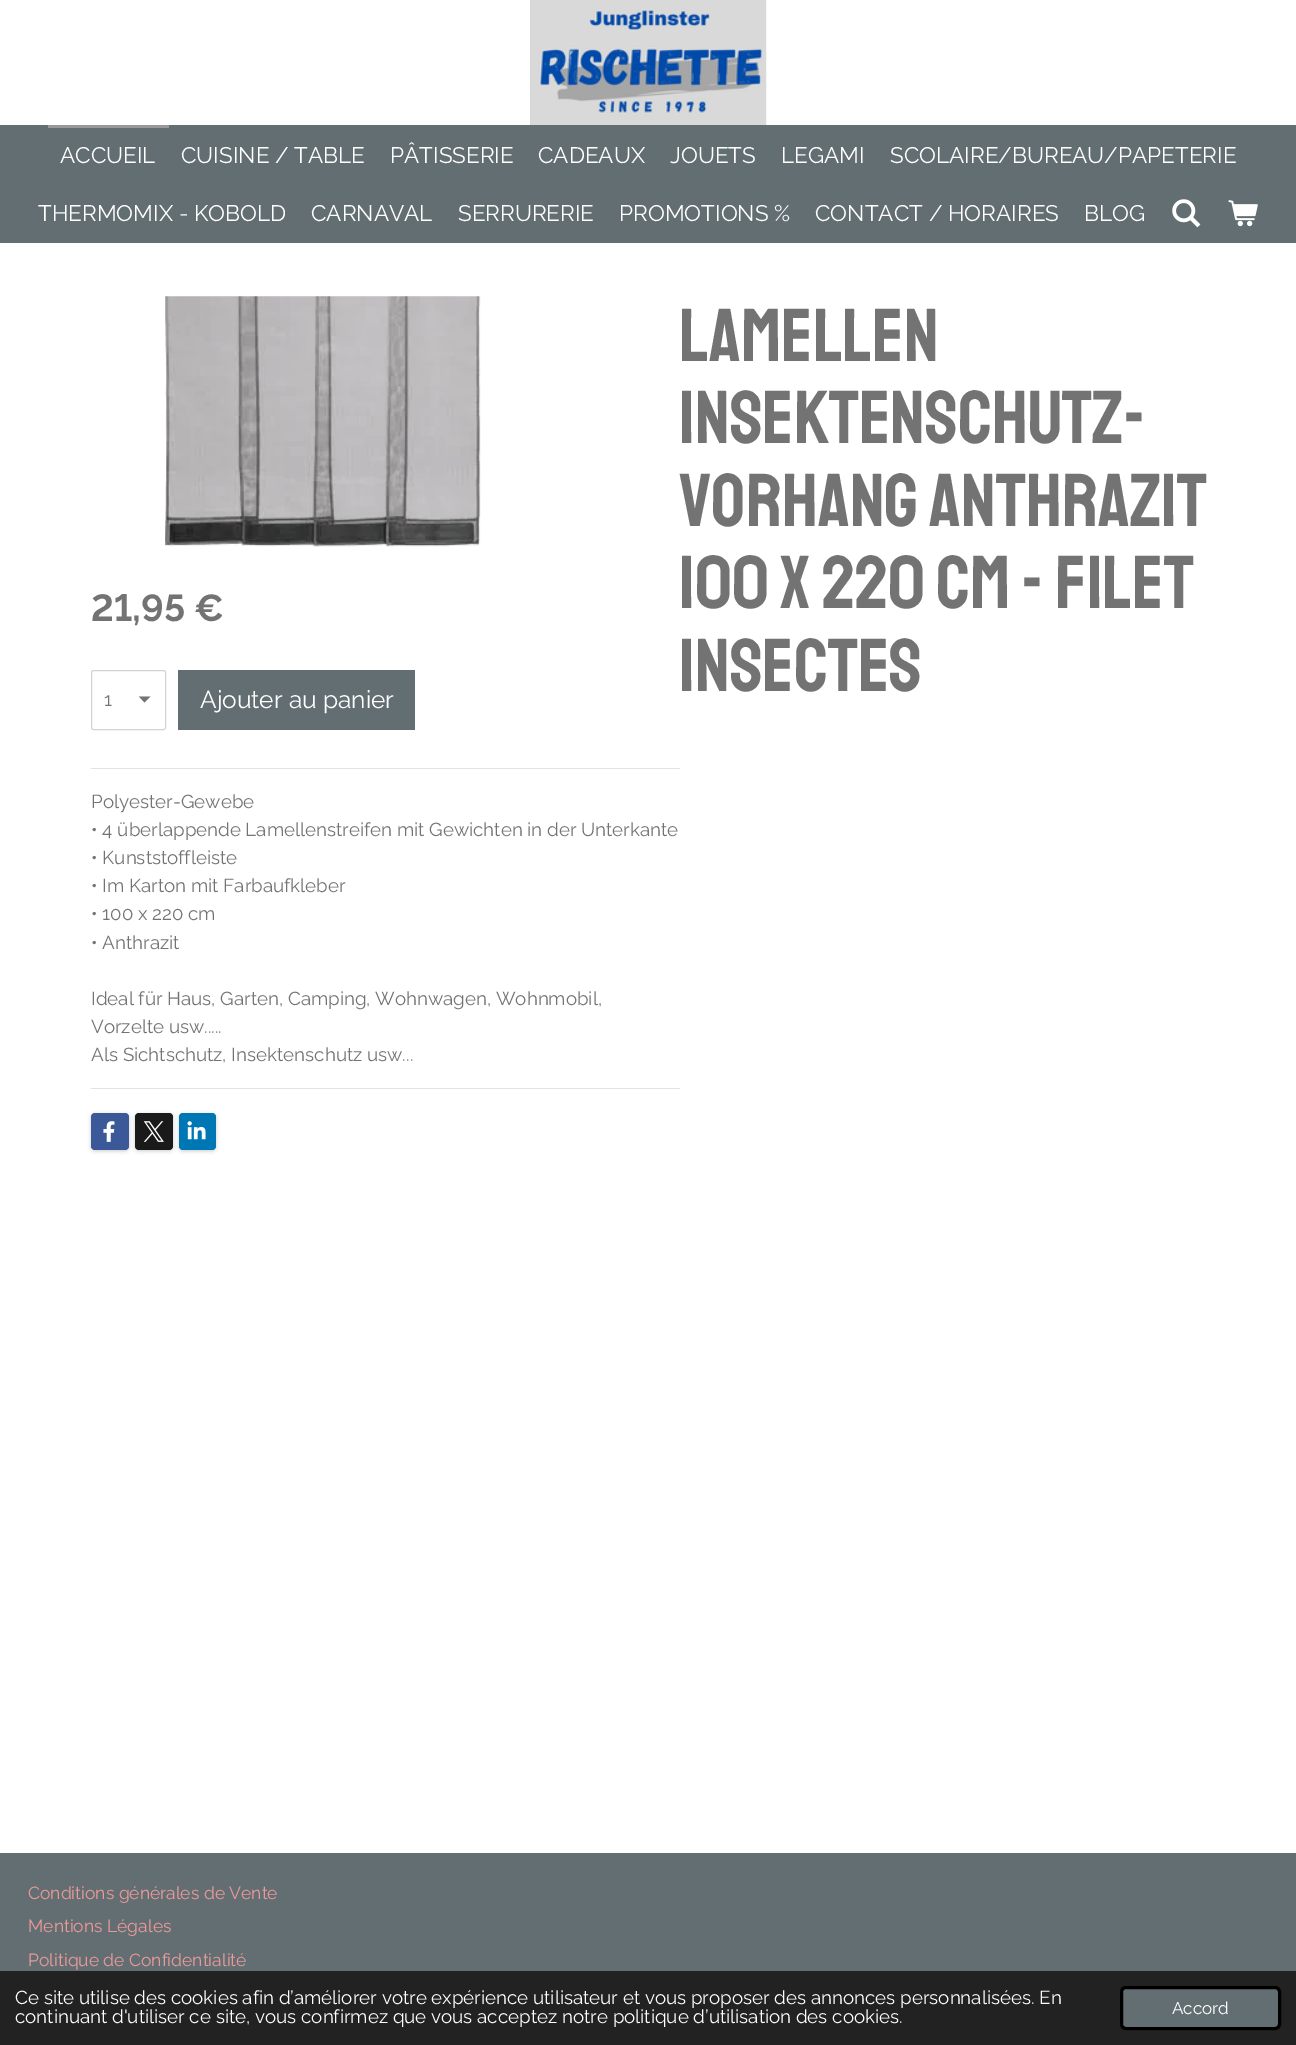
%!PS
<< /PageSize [1296 2045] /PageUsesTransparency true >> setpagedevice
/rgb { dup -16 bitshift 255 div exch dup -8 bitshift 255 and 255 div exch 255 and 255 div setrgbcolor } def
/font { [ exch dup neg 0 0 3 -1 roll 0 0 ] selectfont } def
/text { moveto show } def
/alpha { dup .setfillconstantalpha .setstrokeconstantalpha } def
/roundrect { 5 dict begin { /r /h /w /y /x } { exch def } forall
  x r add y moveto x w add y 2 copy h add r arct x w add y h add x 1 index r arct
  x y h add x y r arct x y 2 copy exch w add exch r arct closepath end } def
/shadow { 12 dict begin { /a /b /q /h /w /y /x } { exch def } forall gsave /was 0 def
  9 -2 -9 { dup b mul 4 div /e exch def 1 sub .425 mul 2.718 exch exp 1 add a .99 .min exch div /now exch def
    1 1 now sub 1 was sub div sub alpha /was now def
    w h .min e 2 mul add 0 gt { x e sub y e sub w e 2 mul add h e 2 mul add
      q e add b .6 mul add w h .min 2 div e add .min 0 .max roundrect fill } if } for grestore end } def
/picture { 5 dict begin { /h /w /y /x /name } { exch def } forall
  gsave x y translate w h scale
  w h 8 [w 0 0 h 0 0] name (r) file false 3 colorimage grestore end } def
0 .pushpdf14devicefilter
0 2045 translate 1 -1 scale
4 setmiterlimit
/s1 { /Raleway-Regular 22.5 font 16#FFFFFF rgb } def
/s2 { /Staatliches-Regular 75 font 16#737373 rgb } def
/s3 { /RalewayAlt-Bold 37.5 font 16#737373 rgb } def
/s4 { /Raleway-Regular 18.75 font 16#737373 rgb } def
/s5 { /Raleway-Regular 24.5 font 16#FFFFFF rgb } def
/s6 { /Raleway-Regular 17.5 font 16#EB9999 rgb } def
/s7 { /Raleway-Regular 18.75 font 16#FFFFFF rgb } def
/s8 { /Raleway-Regular 17 font 16#FFFFFF rgb } def
16#FFFFFF rgb
0 0 1296 2045 rectfill
(pic1.raw) 530 0 237 125 picture
16#636E72 rgb
0 125 1296 118 rectfill
16#999999 rgb
48 125 121 3 rectfill
s1
(ACCUEIL) 60 163 text
(CUISINE / TABLE) 181 163 text
(PÂTISSERIE) 390 163 text
(CADEAUX) 538 163 text
(JOUETS) 670 163 text
(LEGAMI) 781 163 text
(SCOLAIRE/BUREAU/PAPETERIE) 890 163 text
(THERMOMIX - KOBOLD) 38 221 text
(CARNAVAL) 311 221 text
(SERRURERIE) 458 221 text
(PROMOTIONS %) 619 221 text
(CONTACT / HORAIRES) 815 221 text
(BLOG) 1084 221 text
(pic2.raw) 1172 199 29 29 picture
(pic3.raw) 1228 200 30 27 picture
(pic4.raw) 165 296 316 251 picture
s2
(Lamellen) 679 361 text
(Insektenschutz-) 679 443 text
(Vorhang Anthrazit) 679 526 text
(100 x 220 CM - Filet) 679 608 text
(insectes) 679 691 text
s3
(21,95 €) 91 621 text
144.5 702.5 moveto 139 696.5 lineto 150.5 696.5 lineto closepath fill
16#D3D3D3 rgb
91.5 670.5 74 59 2 roundrect stroke
s4
(1) 104 706 text
16#636E72 rgb
178 670 237 60 rectfill
s5
(Ajouter au panier) 200 708 text
16#E3E3E3 rgb
91 768 589 1 rectfill
s4
(Polyester-Gewebe) 91 808 text
(• 4 überlappende Lamellenstreifen mit Gewichten in der Unterkante) 91 836 text
(• Kunststoffleiste) 91 864 text
(• Im Karton mit Farbaufkleber) 91 892 text
(• 100 x 220 cm) 91 920 text
(• Anthrazit) 91 949 text
(Ideal für Haus, Garten, Camping, Wohnwagen, Wohnmobil,) 91 1005 text
(Vorzelte usw.....) 91 1033 text
(Als Sichtschutz, Insektenschutz usw...) 91 1061 text
16#E3E3E3 rgb
91 1088 589 1 rectfill
16#000000 rgb
91 1114 38 37 4 2 0.2 shadow
16#3B5998 rgb
91 1113 38 37 4 roundrect fill
(pic5.raw) 103 1121 12 21 picture
16#000000 rgb
135 1114 38 37 4 2 0.2 shadow
16#1A1A1A rgb
135 1113 38 37 4 roundrect fill
(pic6.raw) 143 1121 21 21 picture
16#000000 rgb
179 1114 37 37 4 2 0.2 shadow
16#0077B5 rgb
179 1113 37 37 4 roundrect fill
(pic7.raw) 187 1121 19 19 picture
16#636E72 rgb
0 1853 1296 118 rectfill
s6
(Conditions générales de Vente) 28 1899 text
(Mentions Légales) 28 1932 text
(Politique de Confidentialité) 28 1966 text
16#222222 rgb
0 1971 1296 74 rectfill
s7
(Ce site utilise des cookies afin d’améliorer votre expérience utilisateur et vous proposer des annonces personnalisées. En) 15 2004 text
(continuant d'utiliser ce site, vous confirmez que vous acceptez notre politique d’utilisation des cookies.) 15 2023 text
16#636E72 rgb
1121.5 1987.5 158 41 4.5 roundrect gsave fill grestore
16#000000 rgb
3 setlinewidth
stroke
s8
(Accord) 1172 2014 text
.poppdf14devicefilter showpage
